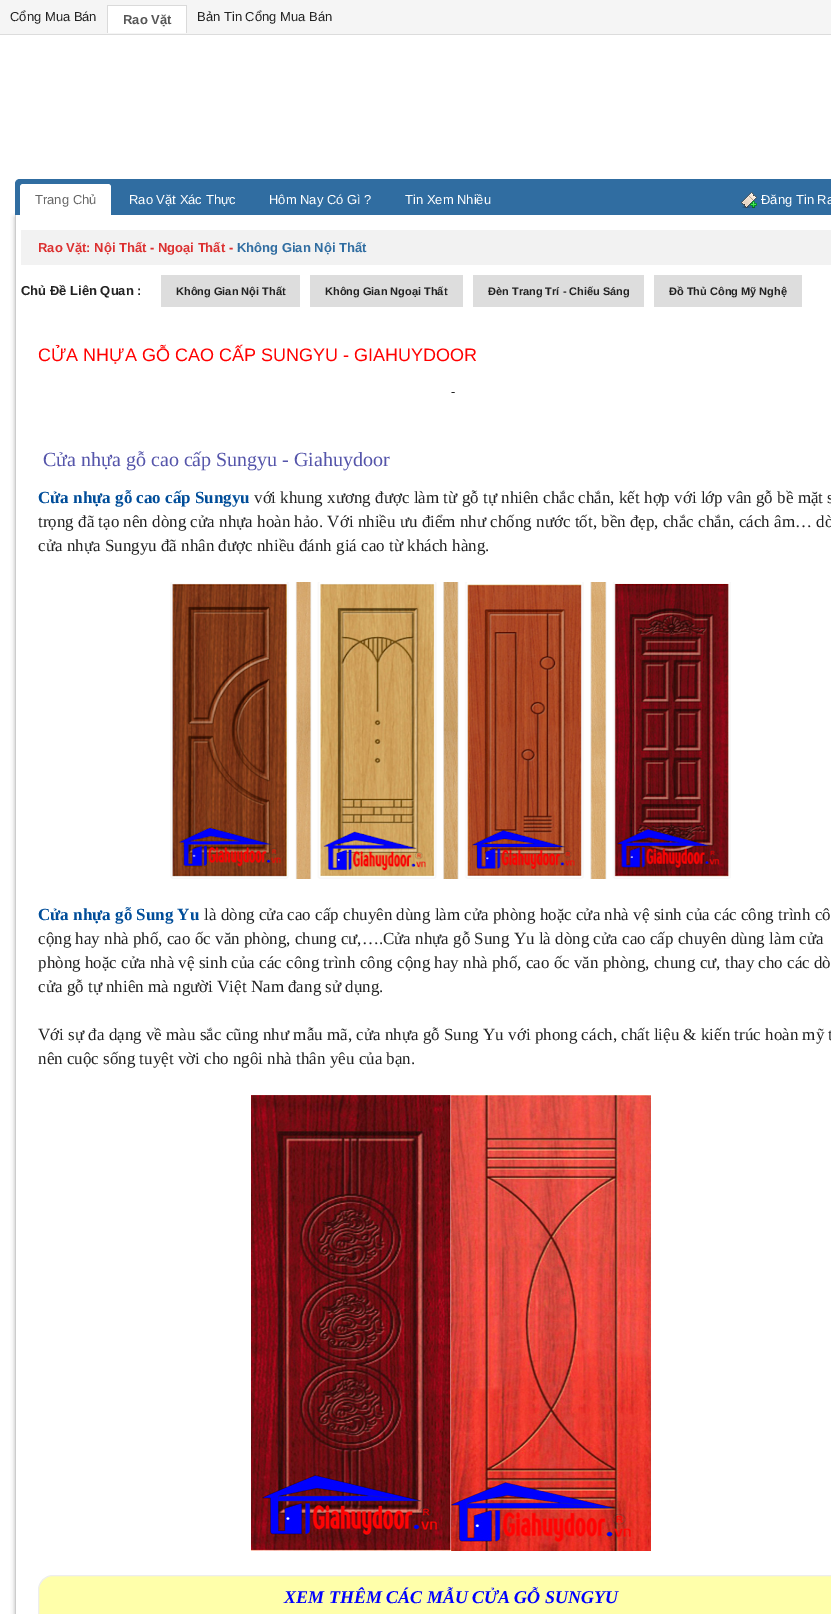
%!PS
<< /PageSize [831 1614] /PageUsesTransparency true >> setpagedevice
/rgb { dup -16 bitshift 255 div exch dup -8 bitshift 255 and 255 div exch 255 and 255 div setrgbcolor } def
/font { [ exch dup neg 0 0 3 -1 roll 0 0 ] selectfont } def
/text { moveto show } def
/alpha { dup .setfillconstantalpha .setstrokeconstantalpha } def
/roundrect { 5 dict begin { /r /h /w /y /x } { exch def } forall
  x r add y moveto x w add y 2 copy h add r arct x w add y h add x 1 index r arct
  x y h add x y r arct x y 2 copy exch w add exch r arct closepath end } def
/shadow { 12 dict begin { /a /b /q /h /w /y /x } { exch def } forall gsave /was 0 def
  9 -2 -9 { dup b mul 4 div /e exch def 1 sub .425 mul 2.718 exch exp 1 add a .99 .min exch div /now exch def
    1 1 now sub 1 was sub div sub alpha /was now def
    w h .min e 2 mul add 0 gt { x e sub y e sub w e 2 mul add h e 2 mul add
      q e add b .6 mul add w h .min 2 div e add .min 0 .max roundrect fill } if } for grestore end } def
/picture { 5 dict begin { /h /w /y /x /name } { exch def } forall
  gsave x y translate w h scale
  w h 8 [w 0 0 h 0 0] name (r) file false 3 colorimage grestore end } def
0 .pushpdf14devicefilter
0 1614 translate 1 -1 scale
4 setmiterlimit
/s1 { /LiberationSans-Regular 13 font 16#222222 rgb } def
/s2 { /LiberationSans-Bold 13 font 16#565656 rgb } def
/s3 { /LiberationSans-Regular 13 font 16#666666 rgb } def
/s4 { /LiberationSans-Regular 13 font 16#FFFFFF rgb } def
/s5 { /LiberationSans-Bold 13 font 16#DC3030 rgb } def
/s6 { /LiberationSans-Bold 13 font 16#306DA1 rgb } def
/s7 { /LiberationSans-Bold 13 font 16#222222 rgb } def
/s8 { /LiberationSans-Bold 11 font 16#222222 rgb } def
/s9 { /LiberationSans-Regular 18 font 16#FF0000 rgb } def
/s10 { /LiberationSerif-Regular 20 font 16#5555AA rgb } def
/s11 { /LiberationSerif-Bold 17 font 16#004D99 rgb } def
/s12 { /LiberationSerif-Regular 17 font 16#222222 rgb } def
/s13 { /LiberationSerif-BoldItalic 18 font 16#0000FF rgb } def
16#FFFFFF rgb
0 0 831 1614 rectfill
16#F5F5F5 rgb
0 0 831 34 rectfill
16#DCDCDC rgb
0 34 831 1 rectfill
s1
(Cổng Mua Bán) 10 21 text
16#FFFFFF rgb
108 6 78 27 rectfill
16#DADADA rgb
107 5 80 1 rectfill
186 5 1 28 rectfill
107 5 1 28 rectfill
s2
(Rao Vặt) 123 24 text
s1
(Bản Tin Cổng Mua Bán) 197 21 text
gsave
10 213 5 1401 rectclip
16#BBBBBB rgb
15 217 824 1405 0 2.5 1 shadow
grestore
16#306DA1 rgb
20 179 moveto 831 179 lineto 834 179 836 181 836 184 curveto 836 215 lineto 15 215 lineto 15 184 lineto 15 181 17 179 20 179 curveto closepath fill
16#FFFFFF rgb
23 184 moveto 108 184 lineto 109.5 184 111 185.5 111 187 curveto 111 215 lineto 20 215 lineto 20 187 lineto 20 185.5 21.5 184 23 184 curveto closepath fill
s3
(Trang Chủ) 35 204 text
s4
(Rao Vặt Xác Thực) 129 204 text
(Hôm Nay Có Gì ?) 269 204 text
(Tin Xem Nhiều) 405 204 text
(pic1.raw) 741 192 16 16 picture
(Đăng Tin Ra) 761 204 text
16#CCCCCC rgb
15 215 1 1399 rectfill
16#F2F2F2 rgb
21 230 810 35 rectfill
s5
(Rao Vặt: Nội Thất - Ngoại Thất -) 38 252 text
s6
(Không Gian Nội Thất) 237 252 text
s7
(Chủ Đề Liên Quan :) 21 295 text
16#DDDDDD rgb
161 275 139 32 rectfill
s8
(Không Gian Nội Thất) 176 295 text
16#DDDDDD rgb
310 275 153 32 rectfill
s8
(Không Gian Ngoại Thất) 325 295 text
16#DDDDDD rgb
473 275 171 32 rectfill
s8
(Đèn Trang Trí - Chiếu Sáng) 488 295 text
16#DDDDDD rgb
654 275 148 32 rectfill
s8
(Đồ Thủ Công Mỹ Nghệ) 669 295 text
s9
(CỬA NHỰA GỖ CAO CẤP SUNGYU - GIAHUYDOOR) 38 361 text
s1
(-) 451 396 text
s10
(Cửa nhựa gỗ cao cấp Sungyu - Giahuydoor) 43 466 text
s11
(Cửa nhựa gỗ cao cấp Sungyu) 38 503 text
s12
(với khung xương được làm từ gỗ tự nhiên chắc chắn, kết hợp với lớp vân gỗ bề mặt s) 254 503 text
(trọng đã tạo nên dòng cửa nhựa hoàn hảo. Với nhiều ưu điểm như chống nước tốt, bền đẹp, chắc chắn, cách âm… dò) 38 527 text
(cửa nhựa Sungyu đã nhân được nhiều đánh giá cao từ khách hàng.) 38 551 text
(pic2.raw) 170 582 561 297 picture
s11
(Cửa nhựa gỗ Sung Yu) 38 920 text
s12
(là dòng cửa cao cấp chuyên dùng làm cửa phòng hoặc cửa nhà vệ sinh của các công trình cô) 204 920 text
(cộng hay nhà phố, cao ốc văn phòng, chung cư,….Cửa nhựa gỗ Sung Yu là dòng cửa cao cấp chuyên dùng làm cửa) 38 944 text
(phòng hoặc cửa nhà vệ sinh của các công trình công cộng hay nhà phố, cao ốc văn phòng, chung cư, thay cho các dò) 38 968 text
(cửa gỗ tự nhiên mà người Việt Nam đang sử dụng.) 38 992 text
(Với sự đa dạng về màu sắc cũng như mẫu mã, cửa nhựa gỗ Sung Yu với phong cách, chất liệu & kiến trúc hoàn mỹ t) 38 1040 text
(nên cuộc sống tuyệt vời cho ngôi nhà thân yêu của bạn.) 38 1064 text
(pic3.raw) 251 1095 200 456 picture
(pic4.raw) 451 1095 200 456 picture
16#FFFFAA rgb
38.5 1575.5 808 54 14.5 roundrect gsave fill grestore
16#EEEEEE rgb
stroke
s13
(XEM THÊM CÁC MẪU CỬA GỖ SUNGYU) 284 1603 text
.poppdf14devicefilter showpage
